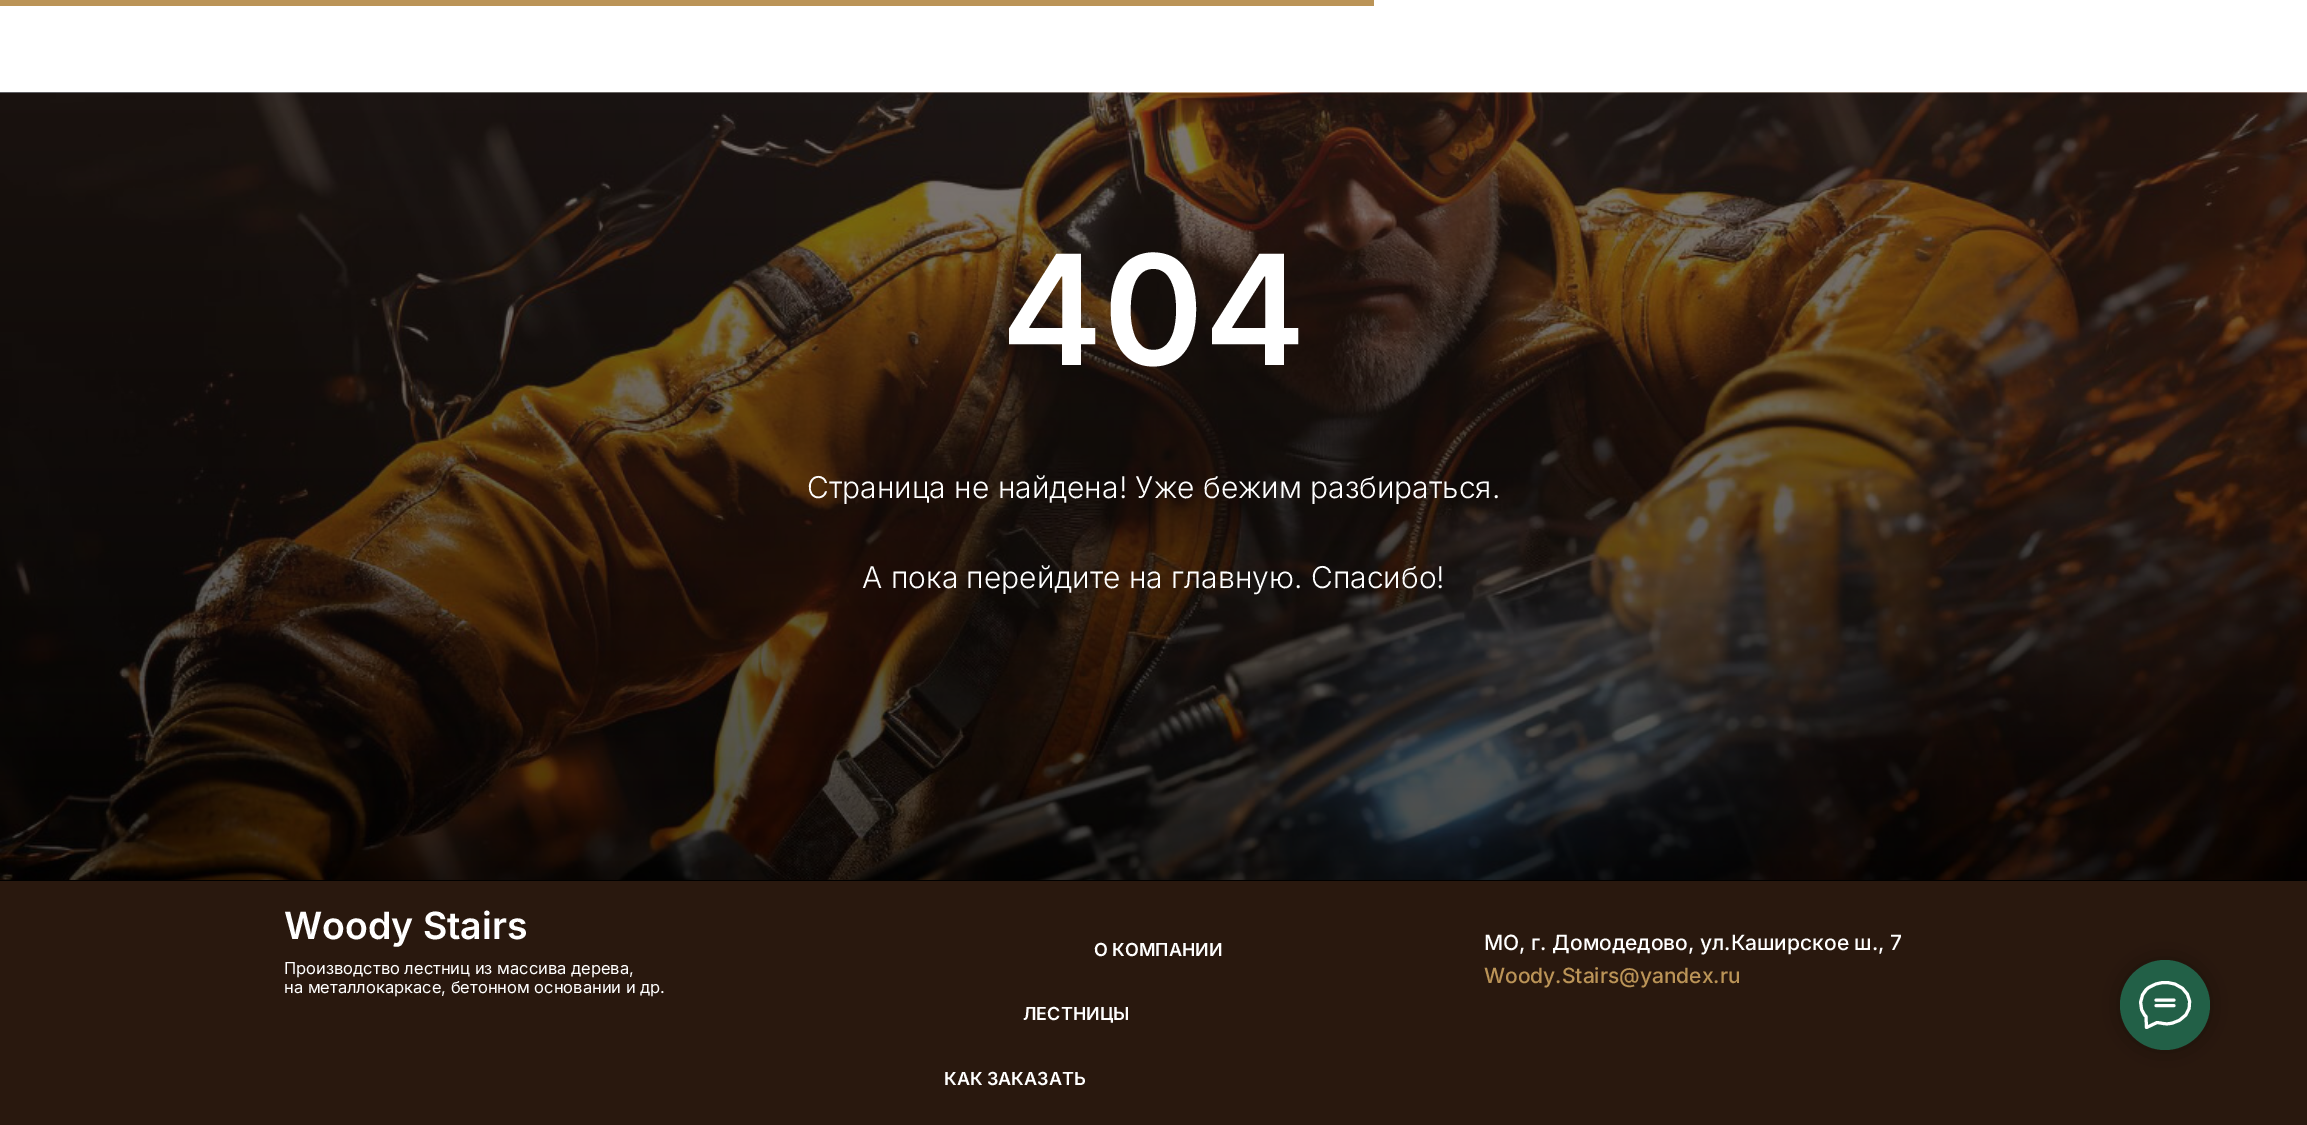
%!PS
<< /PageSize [2307 1125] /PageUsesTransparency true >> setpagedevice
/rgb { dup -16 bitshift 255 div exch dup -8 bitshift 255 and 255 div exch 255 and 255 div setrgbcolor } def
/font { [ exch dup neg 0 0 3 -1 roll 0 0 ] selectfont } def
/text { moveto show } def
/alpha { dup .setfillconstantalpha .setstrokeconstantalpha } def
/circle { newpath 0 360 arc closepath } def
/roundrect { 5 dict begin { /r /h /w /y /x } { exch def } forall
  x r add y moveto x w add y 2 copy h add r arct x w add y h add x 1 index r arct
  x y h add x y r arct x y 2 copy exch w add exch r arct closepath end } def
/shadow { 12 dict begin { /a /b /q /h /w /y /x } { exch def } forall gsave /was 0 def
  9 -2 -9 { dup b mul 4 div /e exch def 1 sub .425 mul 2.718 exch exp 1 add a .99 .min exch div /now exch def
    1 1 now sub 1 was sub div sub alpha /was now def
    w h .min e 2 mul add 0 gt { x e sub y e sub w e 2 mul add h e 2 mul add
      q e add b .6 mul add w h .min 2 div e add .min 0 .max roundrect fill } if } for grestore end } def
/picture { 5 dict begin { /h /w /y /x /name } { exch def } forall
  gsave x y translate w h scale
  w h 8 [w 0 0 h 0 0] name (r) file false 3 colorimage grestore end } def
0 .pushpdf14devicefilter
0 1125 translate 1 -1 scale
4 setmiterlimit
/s1 { /Inter-SemiBold 153 font 16#FFFFFF rgb } def
/s2 { /Inter-Light 30 font 16#FFFFFF rgb } def
/s3 { /Inter-SemiBold 37.5 font 16#FFFFFF rgb } def
/s4 { /Inter-SemiBold 18 font 16#FFFFFF rgb } def
/s5 { /Inter-Medium 21 font 16#FFFFFF rgb } def
/s6 { /Inter-Medium 21 font 16#BB9457 rgb } def
/s7 { /Inter-Regular 16.5 font 16#FFFFFF rgb } def
16#FFFFFF rgb
0 0 2307 1125 rectfill
16#BB9457 rgb
0 0 1374 6 rectfill
16#000000 rgb
0 880 2307 1 rectfill
(pic1.raw) 0 92 2307 1 picture
(pic2.raw) 0 92 2307 788 picture
s1
(404) 1001 365 text
s2
(Страница не найдена! Уже бежим разбираться.) 807 498 text
(А пока перейдите на главную. Спасибо!) 862 588 text
16#29180E rgb
0 881 2307 244 rectfill
s3
(Woody Stairs) 284 939 text
s4
(О КОМПАНИИ) 1094 956 text
s5
(МО, г. Домодедово, ул.Каширское ш., 7) 1484 950 text
s6
(Woody.Stairs@yandex.ru) 1484 983 text
s7
(Производство лестниц из массива дерева,) 284 974 text
(на металлокаркасе, бетонном основании и др.) 284 993 text
s4
(ЛЕСТНИЦЫ) 1023 1020 text
(КАК ЗАКАЗАТЬ) 944 1085 text
16#000000 rgb
2120 960 90 90 45 15 0.3 shadow
16#226047 rgb
2165 1005 45 circle fill
16#FFFFFF rgb
3 setlinewidth
1 setlinecap
1 setlinejoin
2156 1000 moveto 2174 1000 lineto 2156 1005.5 moveto 2174 1005.5 lineto 2146 1016.5 moveto 2138 1008.5 2139 996 2147.5 988.5 curveto 2152.5 984.5 2159 982.5 2165 982.5 curveto 2194.5 982.5 2199.5 1018.5 2170 1023.5 curveto 2165 1024.5 2162 1023 2157 1022.5 curveto 2146.5 1027.5 lineto closepath stroke
.poppdf14devicefilter showpage
